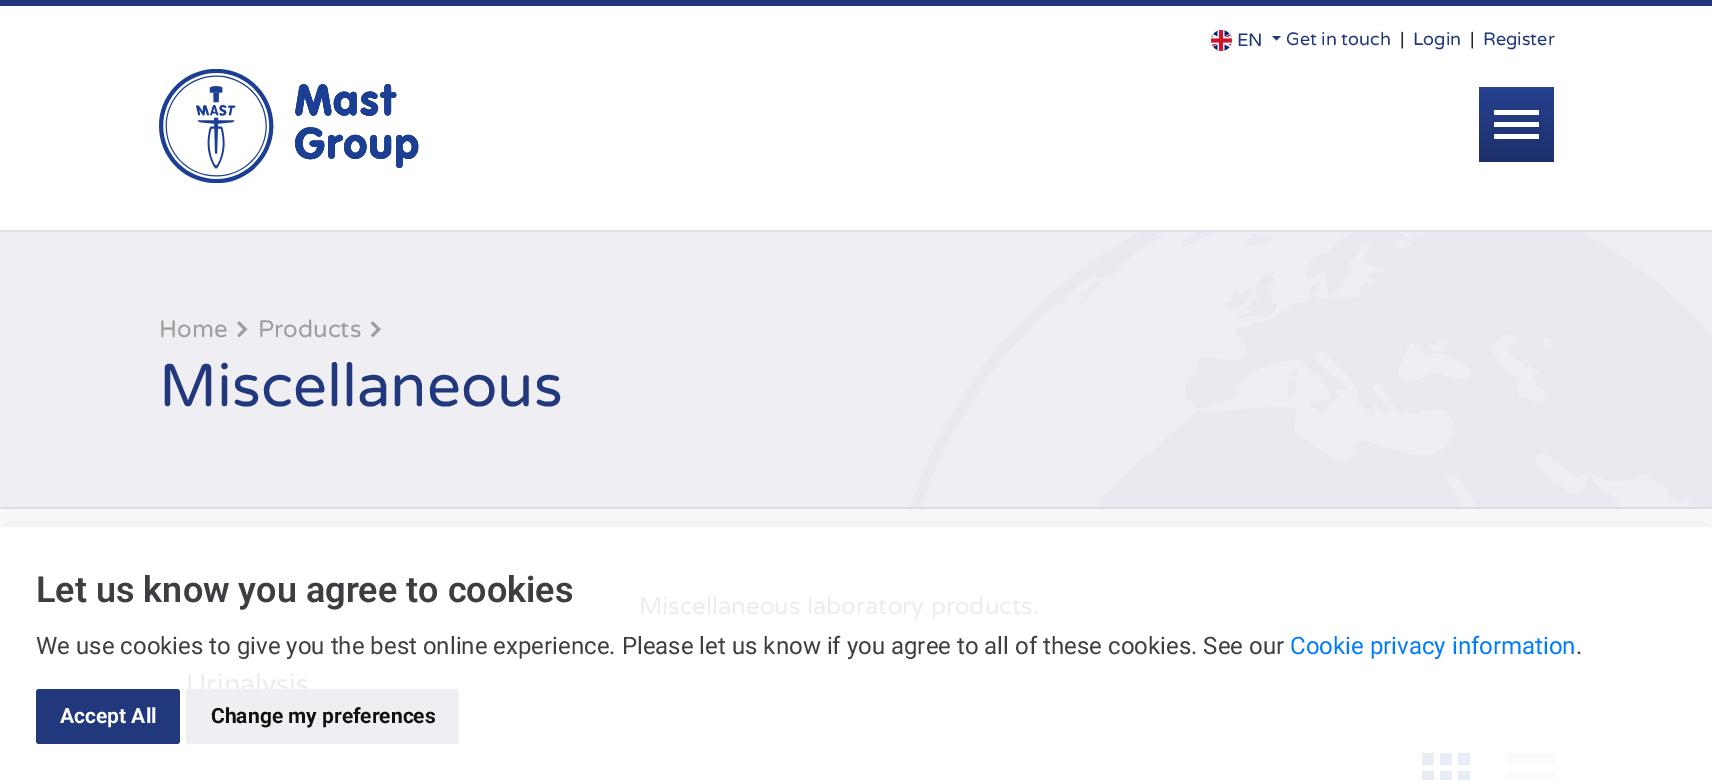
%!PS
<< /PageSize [1712 780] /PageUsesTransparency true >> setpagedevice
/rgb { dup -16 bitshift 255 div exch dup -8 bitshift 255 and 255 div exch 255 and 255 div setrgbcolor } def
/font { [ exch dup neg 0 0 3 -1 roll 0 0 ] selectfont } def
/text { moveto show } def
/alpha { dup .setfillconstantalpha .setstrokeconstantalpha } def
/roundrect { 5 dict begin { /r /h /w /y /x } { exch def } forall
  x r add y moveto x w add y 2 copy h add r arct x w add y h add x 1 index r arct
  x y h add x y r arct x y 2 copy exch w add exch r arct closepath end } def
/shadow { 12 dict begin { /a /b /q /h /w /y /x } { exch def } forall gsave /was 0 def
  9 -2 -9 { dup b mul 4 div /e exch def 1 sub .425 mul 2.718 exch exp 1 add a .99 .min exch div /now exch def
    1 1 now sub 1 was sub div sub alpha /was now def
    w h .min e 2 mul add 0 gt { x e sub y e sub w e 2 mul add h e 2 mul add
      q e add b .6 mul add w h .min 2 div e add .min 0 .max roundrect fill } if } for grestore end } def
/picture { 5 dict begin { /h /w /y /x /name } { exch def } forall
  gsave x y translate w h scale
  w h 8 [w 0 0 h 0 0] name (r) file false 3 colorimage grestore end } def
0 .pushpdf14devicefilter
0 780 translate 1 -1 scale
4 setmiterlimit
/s1 { /VarelaRound-Regular 18 font 16#22387D rgb } def
/s2 { /VarelaRound-Regular 18 font 16#212529 rgb } def
/s3 { /VarelaRound-Regular 24 font 16#9E9EA0 rgb } def
/s4 { /VarelaRound-Regular 60 font 16#22387D rgb } def
/s5 { /VarelaRound-Regular 24 font 16#ECECEC rgb } def
/s6 { /VarelaRound-Regular 27 font 16#ECECEC rgb } def
/s7 { /Roboto-SemiBold 36 font 16#3D3E42 rgb } def
/s8 { /Roboto-Regular 24 font 16#3D3E42 rgb } def
/s9 { /Roboto-Regular 24 font 16#007BFF rgb } def
/s10 { /Roboto-Bold 21 font 16#FFFFFF rgb } def
/s11 { /Roboto-Bold 21 font 16#111111 rgb } def
16#FFFFFF rgb
0 0 1712 780 rectfill
16#22387D rgb
0 0 1712 6 rectfill
(pic1.raw) 1211 30 21 21 picture
s1
(EN) 1237 46 text
1272 36 moveto 1281 36 lineto 1276.5 40.5 lineto closepath fill
(Get in touch) 1286 45 text
s2
(|) 1400 45 text
s1
(Login) 1413 45 text
s2
(|) 1470 45 text
s1
(Register) 1483 45 text
(pic2.raw) 159 69 260 114 picture
gsave 1479 87 moveto 1554 87 lineto 1554 162 lineto 1479 162 lineto closepath clip newpath
<< /ShadingType 2 /ColorSpace /DeviceRGB /Coords [1517 87 1517 162] /Extend [true true] /Function << /FunctionType 2 /Domain [0 1] /C0 [0.153 0.255 0.569] /C1 [0.114 0.184 0.412] /N 1 >> >> shfill grestore
16#FFFFFF rgb
1494 110 45 5 rectfill
1494 122 45 5 rectfill
1494 134 45 5 rectfill
16#EEEEF3 rgb
0 232 1712 275 rectfill
(pic3.raw) 910 232 802 275 picture
16#E0E0E9 rgb
0 230 1712 2 rectfill
0 507 1712 2 rectfill
s3
(Home) 159 337 text
(pic4.raw) 237 321 11 17 picture
(Products) 258 337 text
(pic5.raw) 371 321 10 17 picture
s4
(Miscellaneous) 159 406 text
s5
(Miscellaneous laboratory products.) 639 614 text
16#E8ECF4 rgb
1422 753 12 12 rectfill
1422 771 12 9 rectfill
1440 771 12 9 rectfill
1440 753 12 12 rectfill
1458 753 12 12 rectfill
1458 771 12 9 rectfill
16#FBFBFD rgb
1506 753 48 12 rectfill
1506 771 48 9 rectfill
s6
(Urinalysis) 186 693 text
gsave
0 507 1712 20 rectclip
16#000000 rgb
0 527 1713 253 0 24 0.1 shadow
grestore
s7
(Let us know you agree to cookies) 36 602 text
s8
(We use cookies to give you the best online experience. Please let us know if you agree to all of these cookies. See our) 36 654 text
s9
(Cookie privacy information) 1290 654 text
s8
(.) 1576 654 text
16#22387D rgb
36 689 144 55 3 roundrect fill
s10
(Accept All) 60 723 text
16#EEEEF3 rgb
186 689 273 55 3 roundrect fill
s11
(Change my preferences) 211 723 text
.poppdf14devicefilter showpage
